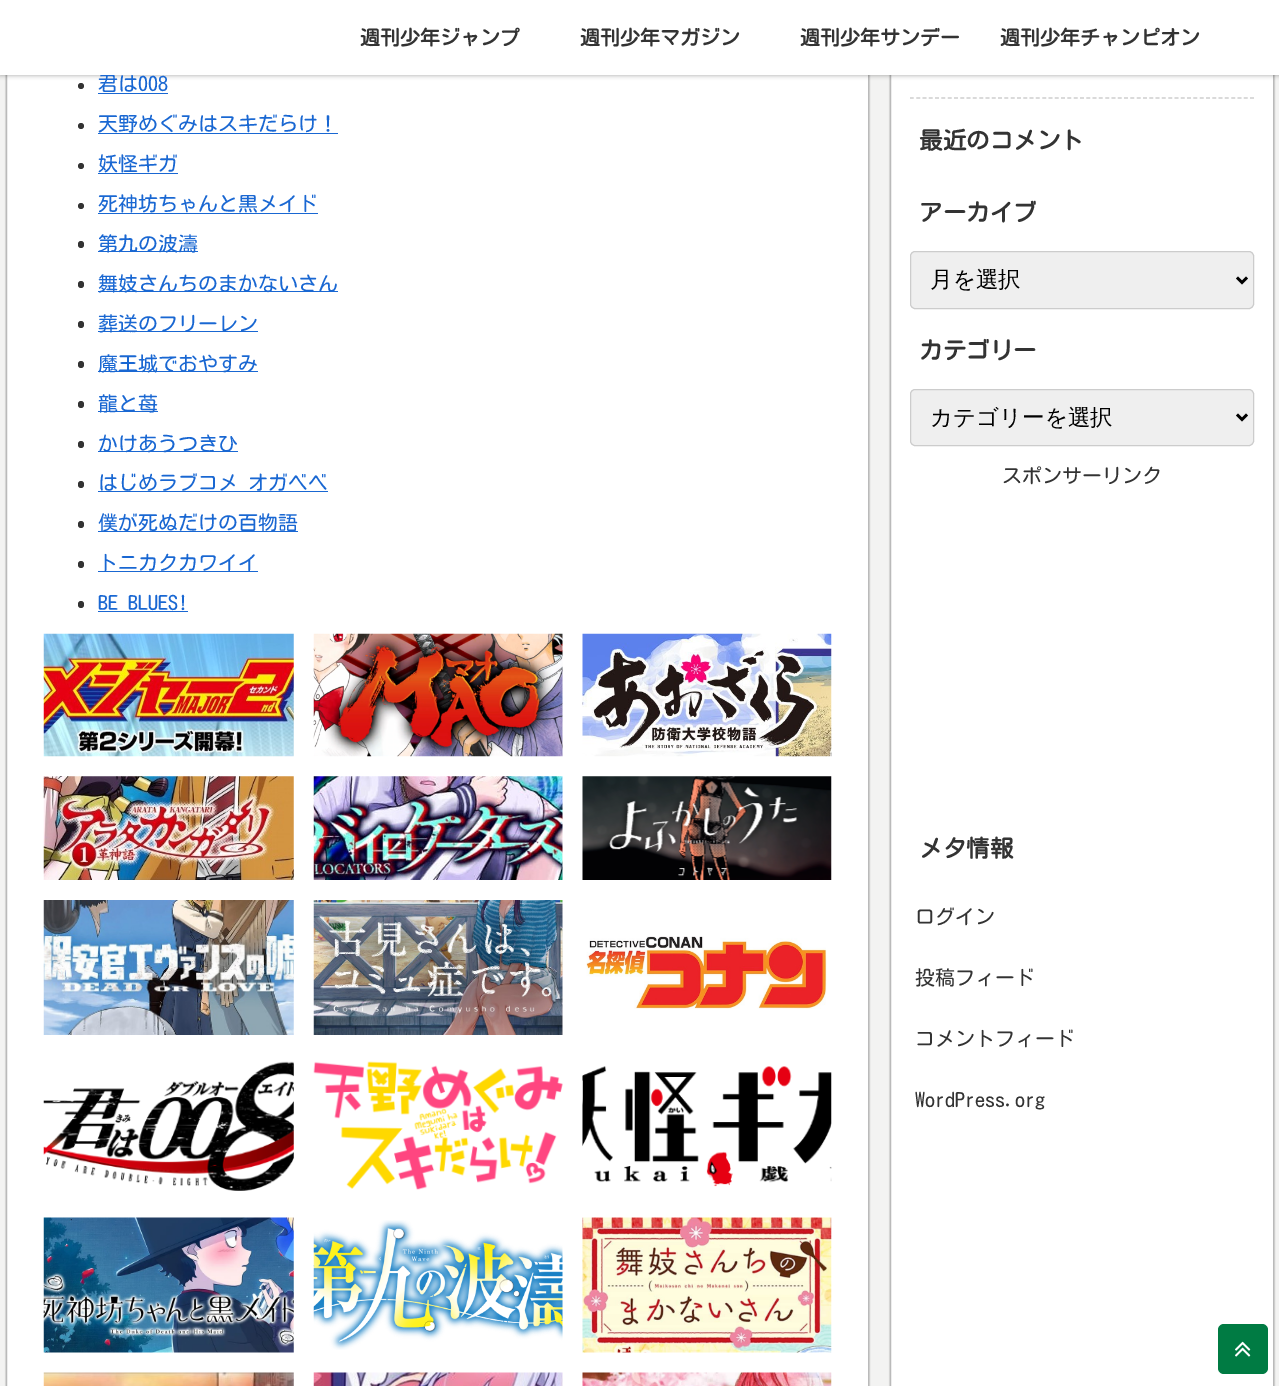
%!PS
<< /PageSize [1279 1386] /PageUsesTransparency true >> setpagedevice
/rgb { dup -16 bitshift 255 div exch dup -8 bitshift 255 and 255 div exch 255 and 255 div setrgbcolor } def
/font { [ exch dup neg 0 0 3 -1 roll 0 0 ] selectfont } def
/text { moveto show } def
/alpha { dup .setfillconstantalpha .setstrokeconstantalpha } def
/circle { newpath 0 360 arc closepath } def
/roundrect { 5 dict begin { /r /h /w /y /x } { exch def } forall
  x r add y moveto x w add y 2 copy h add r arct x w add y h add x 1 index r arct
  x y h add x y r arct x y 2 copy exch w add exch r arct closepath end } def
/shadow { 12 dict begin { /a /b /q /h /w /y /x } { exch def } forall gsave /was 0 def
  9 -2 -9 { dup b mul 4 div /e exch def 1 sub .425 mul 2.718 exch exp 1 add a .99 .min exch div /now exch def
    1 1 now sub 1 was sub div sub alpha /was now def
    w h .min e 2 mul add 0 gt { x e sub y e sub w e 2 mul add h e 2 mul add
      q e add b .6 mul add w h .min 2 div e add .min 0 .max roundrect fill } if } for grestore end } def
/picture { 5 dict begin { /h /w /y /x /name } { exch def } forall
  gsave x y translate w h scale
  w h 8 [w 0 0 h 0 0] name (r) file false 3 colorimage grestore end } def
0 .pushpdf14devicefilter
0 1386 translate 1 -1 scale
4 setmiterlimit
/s1 { /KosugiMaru-Regular 20 font 16#1967D2 rgb } def
/s2 { /KosugiMaru-Bold 20 font 16#333333 rgb } def
/s3 { /KosugiMaru-Bold 23.5 font 16#333333 rgb } def
/s4 { /WenQuanYiZenHei-Medium 22.5 font 16#000000 rgb } def
/s5 { /KosugiMaru-Regular 20 font 16#333333 rgb } def
16#F3F3F2 rgb
0 0 1279 1386 rectfill
16#E0E0DF rgb
5.5 -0.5 864 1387 rectstroke
16#000000 rgb
6 -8 863 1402 5 1 0.16 shadow
16#FFFFFF rgb
7 75 861 1311 rectfill
16#BABABA rgb
6.5 -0.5 862 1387 rectstroke
16#E0E0DF rgb
889.5 -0.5 385 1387 rectstroke
16#000000 rgb
890 -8 384 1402 5 1 0.16 shadow
16#FFFFFF rgb
891 75 382 1311 rectfill
16#BABABA rgb
890.5 -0.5 383 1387 rectstroke
16#000000 rgb
0 1 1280 75 0 2 0.25 shadow
s1
(君は008) 98 91 text
16#FFFFFF rgb
0 0 1279 75 rectfill
s2
(週刊少年ジャンプ) 360 45 text
(週刊少年マガジン) 580 45 text
(週刊少年サンデー) 800 45 text
(週刊少年チャンピオン) 1000 45 text
81 86 3 circle fill
16#1967D2 rgb
98 93 70 1 rectfill
16#333333 rgb
81 126 3 circle fill
s1
(天野めぐみはスキだらけ！) 98 131 text
98 133 240 1 rectfill
16#333333 rgb
81 166 3 circle fill
s1
(妖怪ギガ) 98 171 text
98 173 80 1 rectfill
16#333333 rgb
81 206 3 circle fill
s1
(死神坊ちゃんと黒メイド) 98 211 text
98 213 220 1 rectfill
16#333333 rgb
78 241 6 7 3 roundrect fill
16#1967D2 rgb
98 251 100 1 rectfill
(第九の波濤) 98 251 text
16#333333 rgb
78 281 6 7 3 roundrect fill
16#1967D2 rgb
98 291 240 1 rectfill
(舞妓さんちのまかないさん) 98 291 text
16#333333 rgb
78 321 6 7 3 roundrect fill
16#1967D2 rgb
98 331 160 1 rectfill
(葬送のフリーレン) 98 331 text
16#333333 rgb
78 361 6 7 3 roundrect fill
16#1967D2 rgb
98 371 160 1 rectfill
(魔王城でおやすみ) 98 371 text
16#333333 rgb
78 401 6 7 3 roundrect fill
16#1967D2 rgb
98 411 60 1 rectfill
(龍と苺) 98 411 text
16#333333 rgb
78 441 6 7 3 roundrect fill
16#1967D2 rgb
98 451 140 1 rectfill
(かけあうつきひ) 98 451 text
16#333333 rgb
78 481 6 7 3 roundrect fill
s1
(はじめラブコメ オガベベ) 98 490 text
98 491 230 1 rectfill
16#333333 rgb
78 521 6 7 3 roundrect fill
16#1967D2 rgb
98 531 200 1 rectfill
(僕が死ぬだけの百物語) 98 530 text
16#333333 rgb
78 561 6 7 3 roundrect fill
16#1967D2 rgb
98 571 160 1 rectfill
(トニカクカワイイ) 98 570 text
16#333333 rgb
78 601 6 7 3 roundrect fill
s1
(BE BLUES!) 98 610 text
98 611 90 1 rectfill
(pic1.raw) 43 633 251 124 picture
(pic2.raw) 313 633 250 124 picture
(pic3.raw) 582 633 250 124 picture
(pic4.raw) 43 776 251 104 picture
(pic5.raw) 313 776 250 104 picture
(pic6.raw) 582 776 250 104 picture
(pic7.raw) 43 900 251 135 picture
(pic8.raw) 313 900 250 135 picture
(pic9.raw) 586 936 241 73 picture
(pic10.raw) 43 1061 251 130 picture
(pic11.raw) 313 1061 250 129 picture
(pic12.raw) 582 1066 250 121 picture
(pic13.raw) 43 1217 251 136 picture
(pic14.raw) 313 1220 250 130 picture
(pic15.raw) 582 1217 250 136 picture
(pic16.raw) 43 1372 251 14 picture
(pic17.raw) 313 1372 250 14 picture
(pic18.raw) 582 1372 250 14 picture
16#CCCCCC rgb
1.2 setlinewidth
[3.75 2.55] 0 setdash
910 98 moveto 1254 98 lineto stroke
s3
(最近のコメント) 919 149 text
(アーカイブ) 919 221 text
16#EFEFEF rgb
910.5 251.5 343 57 4.5 roundrect gsave fill grestore
16#CCCCCC rgb
1 setlinewidth
[] 0 setdash
stroke
16#000000 rgb
2.5 setlinewidth
1237 277.5 moveto 1242 282.5 lineto 1247 277.5 lineto stroke
s4
(月を選択) 930 287 text
s3
(カテゴリー) 919 359 text
16#EFEFEF rgb
910.5 389.5 343 56 4.5 roundrect gsave fill grestore
16#CCCCCC rgb
1 setlinewidth
stroke
16#000000 rgb
2.5 setlinewidth
1237 414.5 moveto 1242 419.5 lineto 1247 414.5 lineto stroke
s4
(カテゴリーを選択) 930 425 text
s5
(スポンサーリンク) 1002 483 text
s3
(メタ情報) 919 857 text
s5
(ログイン) 915 924 text
(投稿フィード) 915 985 text
(コメントフィード) 915 1046 text
(WordPress.org) 915 1107 text
16#007B43 rgb
1218 1324 50 50 6 roundrect fill
(pic19.raw) 1235 1341 16 16 picture
.poppdf14devicefilter showpage
